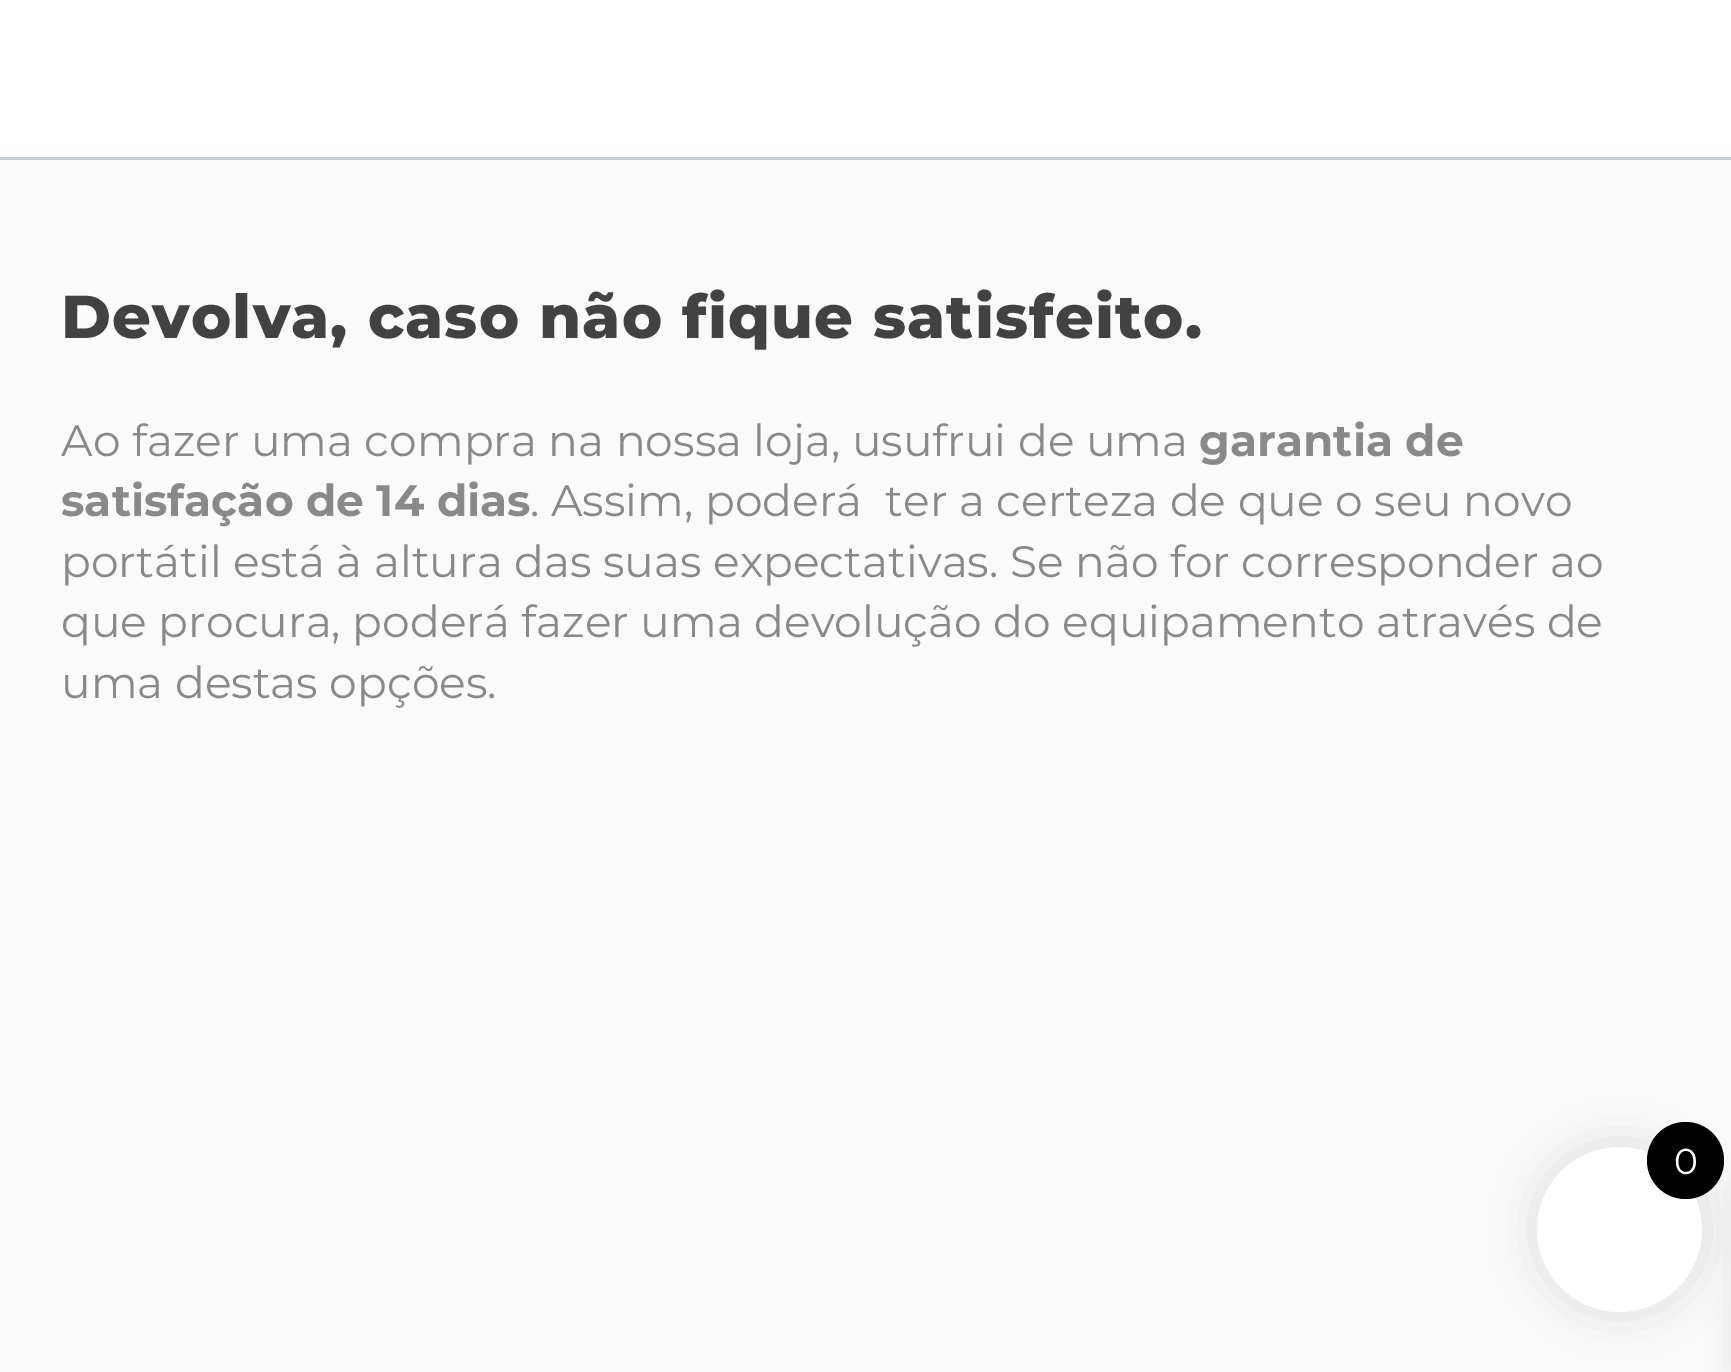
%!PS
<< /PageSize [1731 1372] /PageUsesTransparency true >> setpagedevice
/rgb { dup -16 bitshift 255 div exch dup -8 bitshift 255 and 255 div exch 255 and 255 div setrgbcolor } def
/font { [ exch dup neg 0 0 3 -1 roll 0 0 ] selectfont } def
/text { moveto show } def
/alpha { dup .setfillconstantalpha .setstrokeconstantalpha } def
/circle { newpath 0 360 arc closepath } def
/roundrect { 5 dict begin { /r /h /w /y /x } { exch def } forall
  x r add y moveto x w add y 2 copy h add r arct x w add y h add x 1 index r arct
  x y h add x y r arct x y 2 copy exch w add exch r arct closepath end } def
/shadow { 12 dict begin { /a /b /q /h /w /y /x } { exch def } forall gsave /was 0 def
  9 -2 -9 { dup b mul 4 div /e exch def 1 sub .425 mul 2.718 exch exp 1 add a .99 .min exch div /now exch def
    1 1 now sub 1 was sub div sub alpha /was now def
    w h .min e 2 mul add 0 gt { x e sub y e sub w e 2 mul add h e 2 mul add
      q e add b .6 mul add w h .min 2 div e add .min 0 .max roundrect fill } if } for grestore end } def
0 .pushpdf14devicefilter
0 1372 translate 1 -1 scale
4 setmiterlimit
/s1 { /Montserrat-Regular 44 font 16#898989 rgb } def
/s2 { /Montserrat-Bold 44 font 16#898989 rgb } def
/s3 { /Montserrat-Regular 36 font 16#FFFFFF rgb } def
16#FAFAFA rgb
0 0 1731 1372 rectfill
16#FFFFFF rgb
0 0 1731 157 rectfill
16#BDCEDC rgb
0 157 1731 3 rectfill
/Montserrat-ExtraBold 60.5 font
16#424242 rgb
61 338 moveto 1.2 0 (Devolva, caso não fique satisfeito.) ashow
s1
(Ao fazer uma compra na nossa loja, usufrui de uma) 61 456 text
s2
(garantia de) 1199 456 text
(satisfação de 14 dias) 61 516 text
s1
(. Assim, poderá  ter a certeza de que o seu novo) 530 516 text
(portátil está à altura das suas expectativas. Se não for corresponder ao) 61 577 text
(que procura, poderá fazer uma devolução do equipamento através de) 61 637 text
(uma destas opções.) 61 698 text
16#000000 rgb
1532 1141 176 176 88 20.5 0.1 shadow
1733 1188 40 182 0 14 0.1 shadow
16#FFFFFF rgb
1619.5 1229.5 82.5 circle fill
16#000000 rgb
1685.5 1160.5 38.5 circle fill
s3
(0) 1674 1174 text
.poppdf14devicefilter showpage
